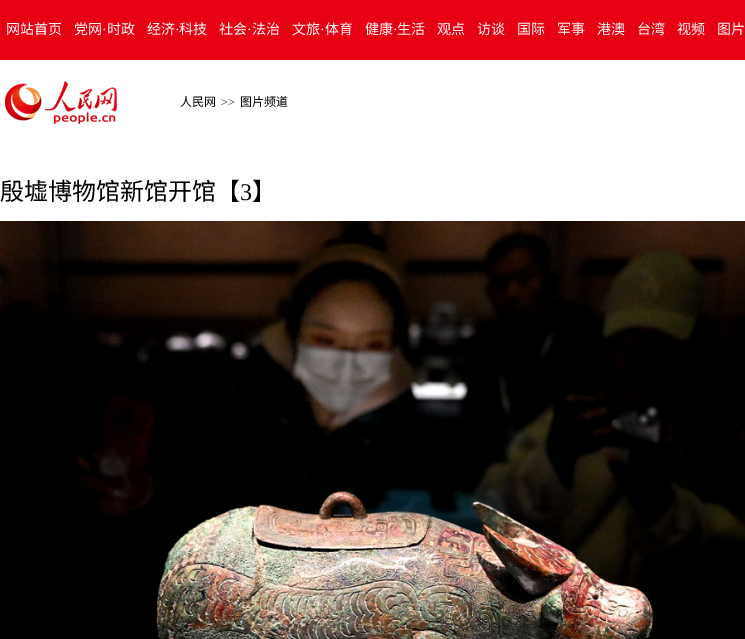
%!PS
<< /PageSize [745 639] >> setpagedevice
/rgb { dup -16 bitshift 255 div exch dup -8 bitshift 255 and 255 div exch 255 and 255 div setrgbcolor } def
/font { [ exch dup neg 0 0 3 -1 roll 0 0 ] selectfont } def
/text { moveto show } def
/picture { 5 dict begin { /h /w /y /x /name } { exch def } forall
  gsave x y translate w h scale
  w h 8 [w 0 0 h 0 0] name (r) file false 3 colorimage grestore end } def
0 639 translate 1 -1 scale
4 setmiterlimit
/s1 { /NotoSansCJKSC-Regular 14 font 16#FFFFFF rgb } def
/s2 { /LiberationSerif-Regular 14 font 16#FFFFFF rgb } def
/s3 { /NotoSansCJKSC-Regular 12 font 16#000000 rgb } def
/s4 { /LiberationSerif-Regular 12 font 16#333333 rgb } def
/s5 { /NotoSansCJKSC-Regular 24 font 16#000000 rgb } def
/s6 { /LiberationSerif-Regular 24 font 16#000000 rgb } def
16#FFFFFF rgb
0 0 745 639 rectfill
16#E60012 rgb
0 0 745 60 rectfill
s1
(网站首页) 6 34 text
(党网) 74 34 text
s2
(·) 102 34 text
s1
(时政) 107 34 text
(经济) 147 34 text
s2
(·) 175 34 text
s1
(科技) 179 34 text
(社会) 219 34 text
s2
(·) 247 34 text
s1
(法治) 252 34 text
(文旅) 292 34 text
s2
(·) 320 34 text
s1
(体育) 325 34 text
(健康) 365 34 text
s2
(·) 393 34 text
s1
(生活) 397 34 text
(观点) 437 34 text
(访谈) 477 34 text
(国际) 517 34 text
(军事) 557 34 text
(港澳) 597 34 text
(台湾) 637 34 text
(视频) 677 34 text
(图片) 717 34 text
(pic1.raw) 5 81 112 43 picture
s3
(人民网) 180 106 text
s4
(>>) 221 106 text
s3
(图片频道) 240 106 text
s5
(殷墟博物馆新馆开馆【) 0 200 text
s6
(3) 240 200 text
s5
(】) 252 200 text
(pic2.raw) 0 221 745 418 picture
showpage
